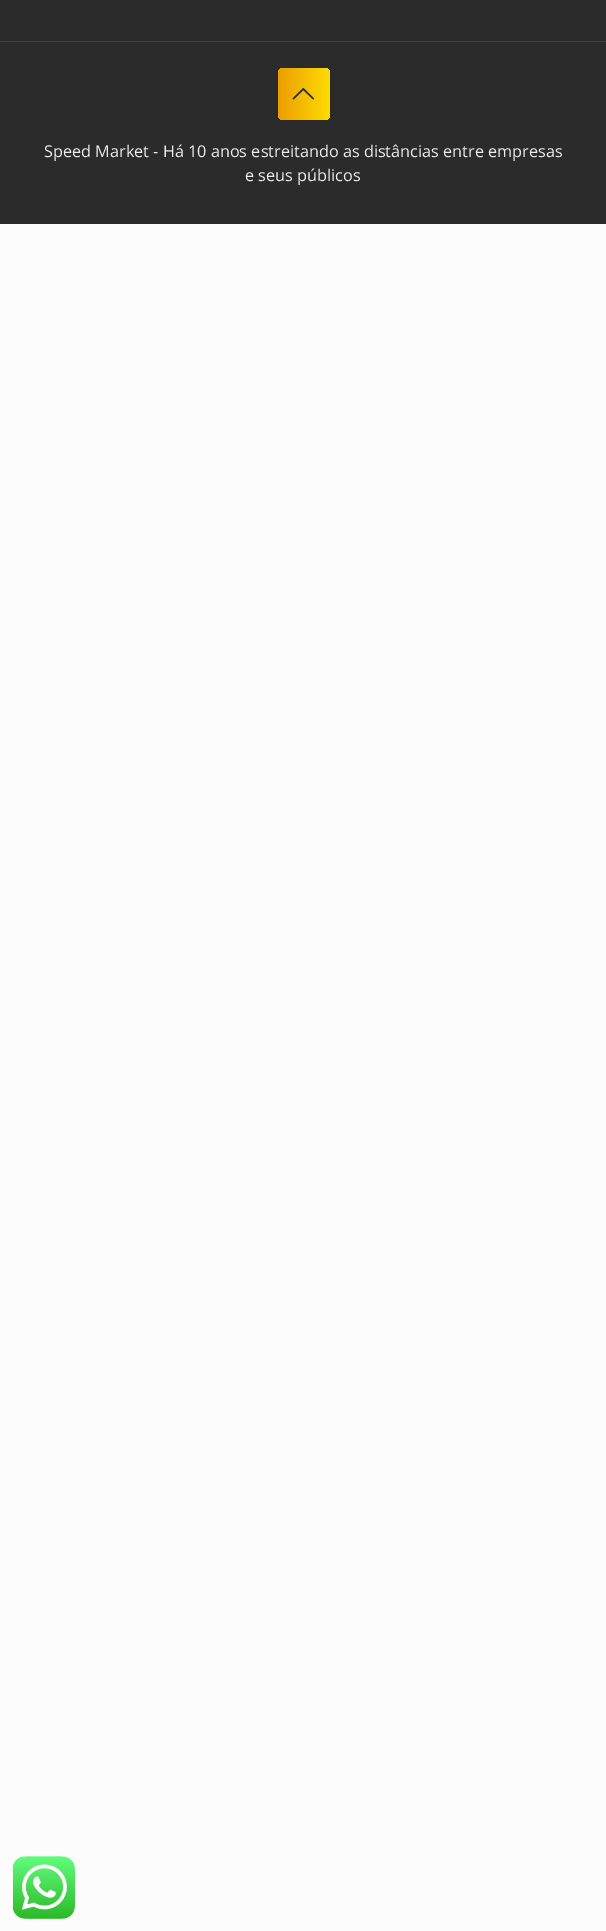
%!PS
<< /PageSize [606 1931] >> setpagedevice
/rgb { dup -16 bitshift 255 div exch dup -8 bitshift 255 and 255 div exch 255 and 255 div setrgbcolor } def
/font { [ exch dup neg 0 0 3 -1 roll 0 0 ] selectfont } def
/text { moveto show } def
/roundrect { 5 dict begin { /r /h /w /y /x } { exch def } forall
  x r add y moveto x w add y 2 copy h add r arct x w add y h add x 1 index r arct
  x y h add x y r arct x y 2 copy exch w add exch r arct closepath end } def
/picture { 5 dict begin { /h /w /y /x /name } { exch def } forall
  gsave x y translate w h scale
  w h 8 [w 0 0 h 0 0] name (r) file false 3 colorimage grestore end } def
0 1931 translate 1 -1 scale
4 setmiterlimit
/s1 { /OpenSans-Regular 16.25 font 16#EDEDED rgb } def
16#FCFCFC rgb
0 0 606 1931 rectfill
16#2B2B2B rgb
0 0 606 41 rectfill
0 42 606 182 rectfill
16#404040 rgb
0 41 606 1 rectfill
gsave 278 68 52 52 6 roundrect clip newpath
<< /ShadingType 2 /ColorSpace /DeviceRGB /Coords [278 94 330 94] /Extend [true true] /Function << /FunctionType 2 /Domain [0 1] /C0 [0.925 0.62 0.004] /C1 [1 0.863 0] /N 1 >> >> shfill grestore
(pic1.raw) 292 88 22 12 picture
s1
(Speed Market - Há 10 anos estreitando as distâncias entre empresas) 44 157 text
(e seus públicos) 245 181 text
(pic2.raw) 13 1856 62 63 picture
showpage
